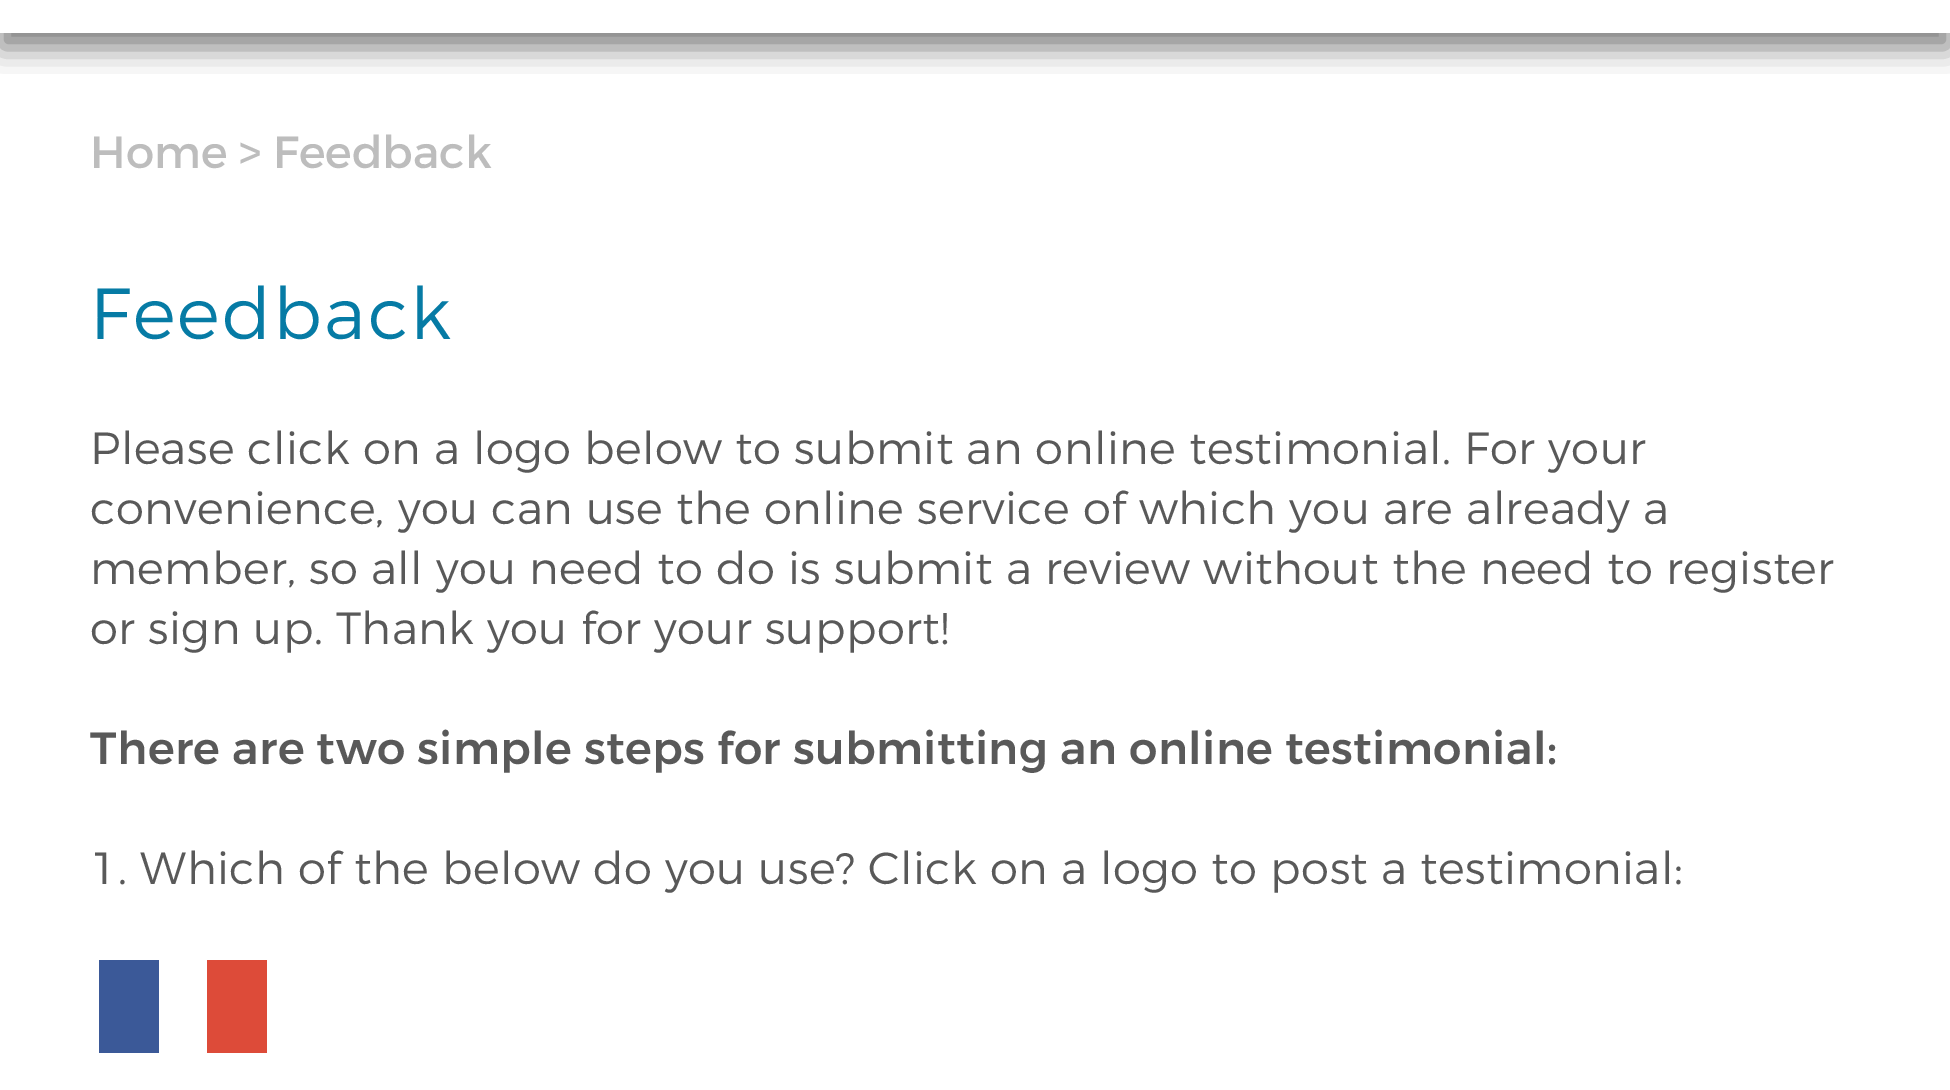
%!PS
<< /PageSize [1950 1090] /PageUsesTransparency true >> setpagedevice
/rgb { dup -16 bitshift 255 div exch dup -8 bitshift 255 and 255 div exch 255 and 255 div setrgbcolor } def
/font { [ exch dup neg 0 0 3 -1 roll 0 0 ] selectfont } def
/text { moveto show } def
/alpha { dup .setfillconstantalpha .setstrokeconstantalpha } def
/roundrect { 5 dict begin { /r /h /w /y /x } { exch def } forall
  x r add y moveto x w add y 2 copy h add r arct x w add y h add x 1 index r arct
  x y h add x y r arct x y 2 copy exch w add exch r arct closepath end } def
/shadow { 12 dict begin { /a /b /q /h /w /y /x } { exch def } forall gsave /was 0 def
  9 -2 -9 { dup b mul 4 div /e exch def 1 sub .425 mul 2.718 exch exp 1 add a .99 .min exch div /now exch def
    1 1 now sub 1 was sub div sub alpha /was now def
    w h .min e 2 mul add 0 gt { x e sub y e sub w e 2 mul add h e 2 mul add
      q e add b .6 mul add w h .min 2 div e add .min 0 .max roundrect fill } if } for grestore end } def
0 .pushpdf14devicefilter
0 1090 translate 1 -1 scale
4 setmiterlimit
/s1 { /Montserrat-Regular 45 font 16#BDBDBD rgb } def
16#FFFFFF rgb
0 0 1950 1090 rectfill
gsave
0 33 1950 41 rectclip
16#000000 rgb
0 -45 1950 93 0 15 0.5 shadow
grestore
s1
(Home) 90 168 text
(> Feedback) 239 168 text
/Montserrat-Light 72 font
16#067BA5 rgb
90 339 moveto 2.25 0 (Feedback) ashow
/Montserrat-Light 45 font
16#595959 rgb
90 464 moveto 0.45 0 (Please click on a logo below to submit an online testimonial. For your) ashow
90 524 moveto 0.45 0 (convenience, you can use the online service of which you are already a) ashow
90 584 moveto 0.45 0 (member, so all you need to do is submit a review without the need to register) ashow
90 644 moveto 0.45 0 (or sign up. Thank you for your support!) ashow
/Montserrat-Medium 45 font
90 764 moveto 0.45 0 (There are two simple steps for submitting an online testimonial:) ashow
/Montserrat-Light 45 font
90 884 moveto 0.45 0 (1. Which of the below do you use? Click on a logo to post a testimonial:) ashow
16#3B5998 rgb
99 960 60 93 rectfill
16#DD4B39 rgb
207 960 60 93 rectfill
.poppdf14devicefilter showpage
